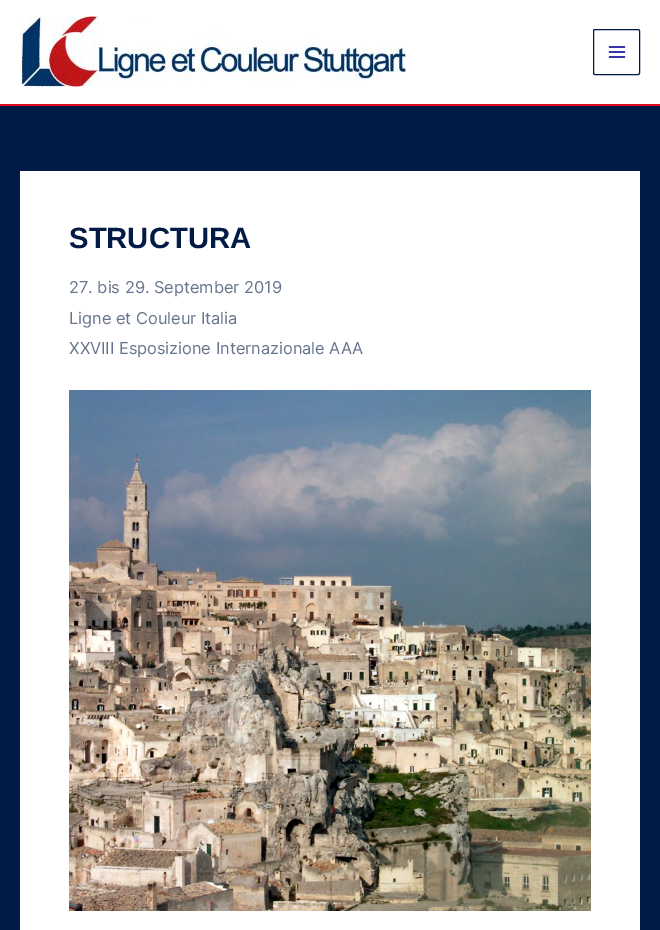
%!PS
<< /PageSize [660 930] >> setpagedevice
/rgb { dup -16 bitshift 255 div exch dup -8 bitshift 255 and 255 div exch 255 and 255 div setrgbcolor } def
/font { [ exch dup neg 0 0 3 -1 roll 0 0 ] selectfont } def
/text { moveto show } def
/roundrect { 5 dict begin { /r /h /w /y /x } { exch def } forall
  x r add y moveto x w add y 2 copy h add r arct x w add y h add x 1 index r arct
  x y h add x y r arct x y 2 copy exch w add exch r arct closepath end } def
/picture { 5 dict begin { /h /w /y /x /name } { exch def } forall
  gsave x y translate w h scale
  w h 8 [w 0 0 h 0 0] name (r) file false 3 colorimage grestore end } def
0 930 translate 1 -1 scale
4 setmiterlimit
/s1 { /LiberationSans-Bold 29.25 font 16#021A46 rgb } def
/s2 { /Inter-Regular 16.4 font 16#67768E rgb } def
16#021A46 rgb
0 0 660 930 rectfill
16#FFFFFF rgb
0 0 660 104 rectfill
16#E1071C rgb
0 104 660 2 rectfill
(pic1.raw) 20 16 386 71 picture
16#021A46 rgb
593.5 29.5 46 45 1.5 roundrect stroke
(pic2.raw) 608 46 18 12 picture
16#FFFFFF rgb
20 171 620 759 rectfill
s1
(STRUCTURA) 69 248 text
s2
(27. bis 29. September 2019) 69 293 text
(Ligne et Couleur Italia) 69 324 text
(XXVIII Esposizione Internazionale AAA) 69 354 text
(pic3.raw) 69 390 522 521 picture
showpage
